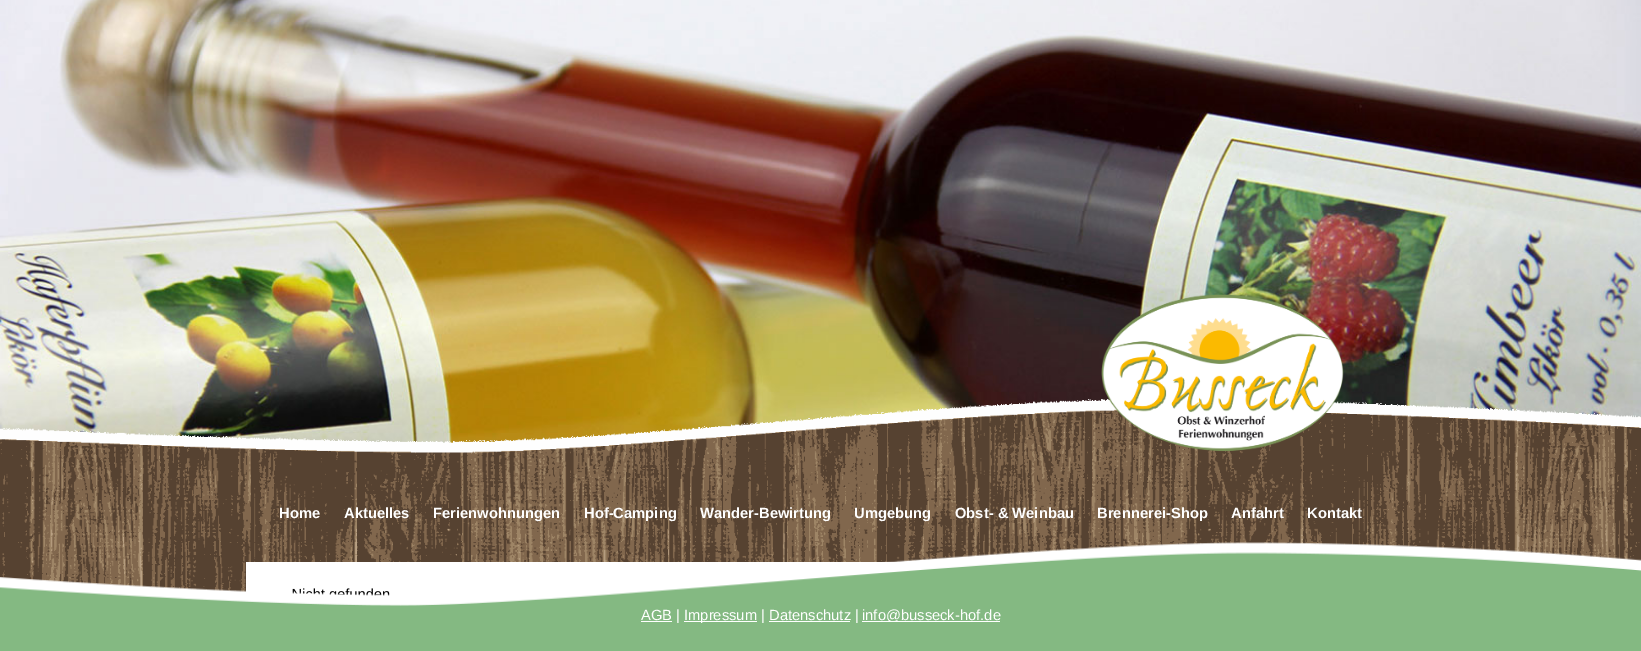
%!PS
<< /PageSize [1641 651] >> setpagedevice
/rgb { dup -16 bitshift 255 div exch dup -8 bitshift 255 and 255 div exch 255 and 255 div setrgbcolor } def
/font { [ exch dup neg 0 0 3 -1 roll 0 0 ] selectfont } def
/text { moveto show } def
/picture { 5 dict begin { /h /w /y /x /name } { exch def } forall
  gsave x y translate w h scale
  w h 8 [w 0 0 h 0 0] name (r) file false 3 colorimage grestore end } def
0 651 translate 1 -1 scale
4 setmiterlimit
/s1 { /LiberationSans-Bold 14.75 font 16#FFFFFF rgb } def
/s2 { /LiberationSans-Regular 14.75 font 16#FFFFFF rgb } def
16#FFFFFF rgb
0 0 1641 651 rectfill
(pic1.raw) 0 0 1641 443 picture
(pic2.raw) 0 399 1641 193 picture
(pic3.raw) 1101 294 243 158 picture
s1
(Home) 279 518 text
(Aktuelles) 344 518 text
(Ferienwohnungen) 433 518 text
(Hof-Camping) 584 518 text
(Wander-Bewirtung) 700 518 text
(Umgebung) 854 518 text
(Obst- & Weinbau) 955 518 text
(Brennerei-Shop) 1097 518 text
(Anfahrt) 1231 518 text
(Kontakt) 1307 518 text
246 562 649 30 rectfill
(pic4.raw) 0 542 1641 109 picture
641 621 31 1 rectfill
s2
(AGB |) 641 620 text
684 621 73 1 rectfill
(Impressum | Datenschutz |) 684 620 text
862 621 138 1 rectfill
(info@busseck-hof.de) 862 620 text
769 621 81 1 rectfill
showpage
